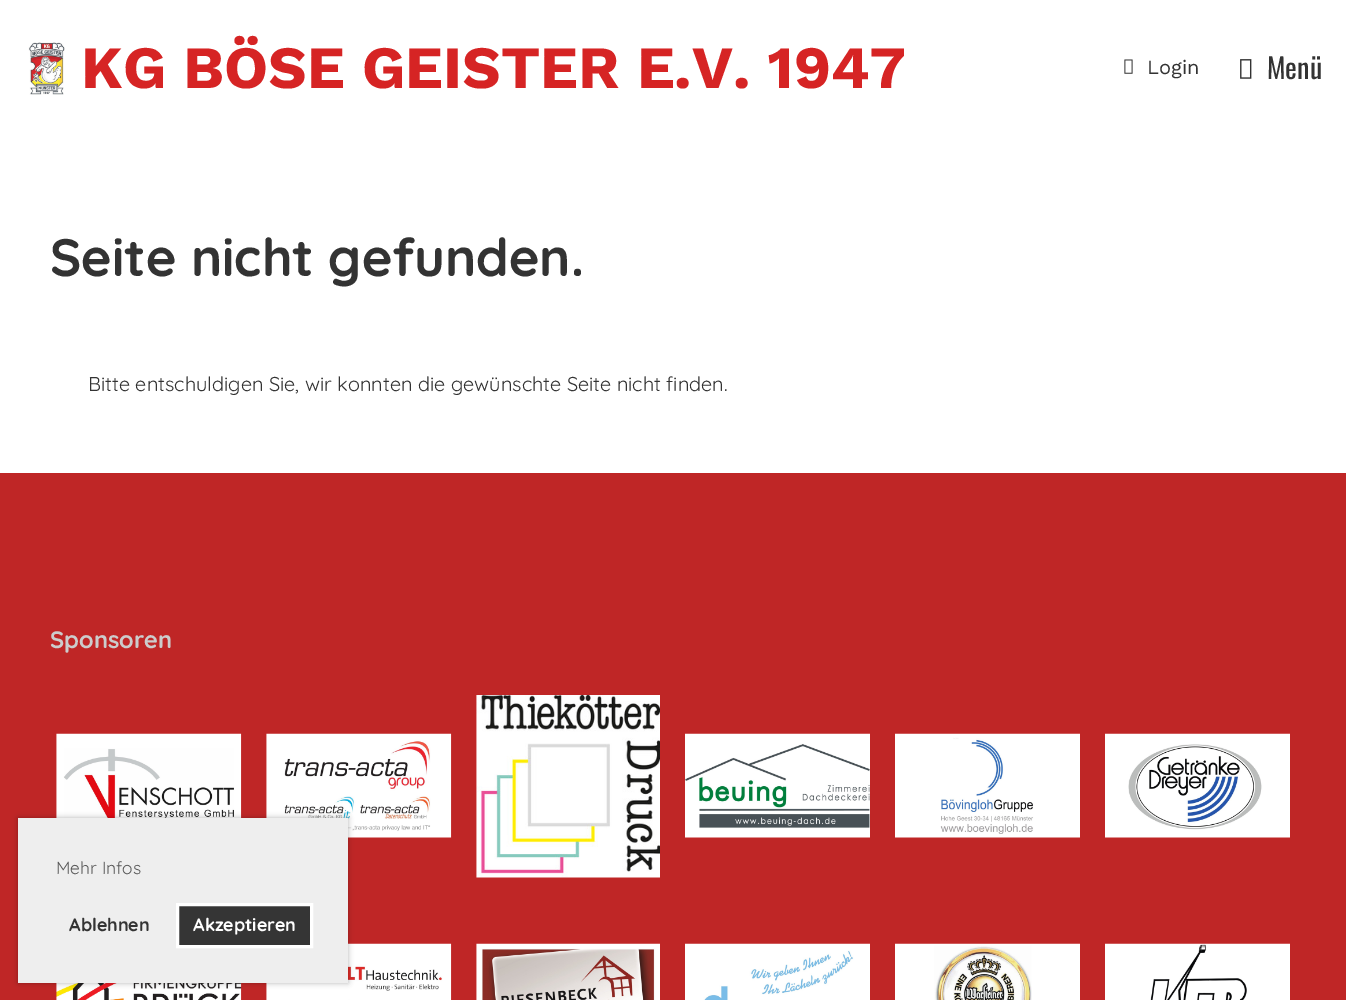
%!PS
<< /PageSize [1346 1000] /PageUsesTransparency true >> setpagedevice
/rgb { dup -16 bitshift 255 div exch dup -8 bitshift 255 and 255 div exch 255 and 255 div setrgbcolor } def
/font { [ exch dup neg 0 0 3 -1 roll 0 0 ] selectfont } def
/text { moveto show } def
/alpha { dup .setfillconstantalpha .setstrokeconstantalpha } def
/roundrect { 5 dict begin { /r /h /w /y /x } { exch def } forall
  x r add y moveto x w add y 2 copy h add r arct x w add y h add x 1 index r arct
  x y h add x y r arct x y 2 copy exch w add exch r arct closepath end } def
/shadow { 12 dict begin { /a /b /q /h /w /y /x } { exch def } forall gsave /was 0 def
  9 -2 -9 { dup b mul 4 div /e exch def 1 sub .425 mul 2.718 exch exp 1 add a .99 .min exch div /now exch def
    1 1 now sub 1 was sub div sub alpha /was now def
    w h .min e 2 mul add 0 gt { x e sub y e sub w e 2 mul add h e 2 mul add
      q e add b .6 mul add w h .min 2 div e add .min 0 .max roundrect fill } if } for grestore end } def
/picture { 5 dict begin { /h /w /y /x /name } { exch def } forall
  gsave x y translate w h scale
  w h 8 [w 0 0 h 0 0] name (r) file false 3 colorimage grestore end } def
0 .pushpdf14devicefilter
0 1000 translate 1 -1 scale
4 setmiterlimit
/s1 { /WorkSans-Bold 60 font 16#D62424 rgb } def
/s2 { /WorkSans-Regular 20 font 16#333333 rgb } def
/s3 { /Oswald-Regular 28 font 16#333333 rgb } def
/s4 { /Quicksand-Light 52.5 font 16#333333 rgb } def
/s5 { /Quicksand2-Light 20 font 16#333333 rgb } def
/s6 { /Quicksand-Light 23.75 font 16#CCCCCC rgb } def
/s7 { /Quicksand2-Light 17.5 font 16#585858 rgb } def
/s8 { /Quicksand-Light 18 font 16#333333 rgb } def
/s9 { /Quicksand-Light 18 font 16#FFFFFF rgb } def
16#FFFFFF rgb
0 0 1346 1000 rectfill
(pic1.raw) 28 42 37 53 picture
s1
(KG BÖSE GEISTER E.V. 1947) 81 88 text
(pic2.raw) 1124 59 9 15 picture
s2
(Login) 1147 74 text
(pic3.raw) 1240 59 12 20 picture
s3
(Menü) 1267 79 text
s4
(Seite nicht gefunden.) 50 276 text
s5
(Bitte entschuldigen Sie, wir konnten die gewünschte Seite nicht finden.) 88 391 text
16#BF2626 rgb
0 473 1346 527 rectfill
s6
(Sponsoren) 50 648 text
(pic4.raw) 56 733 186 85 picture
(pic5.raw) 266 733 186 105 picture
(pic6.raw) 476 695 184 183 picture
(pic7.raw) 685 733 185 105 picture
(pic8.raw) 895 733 185 105 picture
(pic9.raw) 1105 733 185 105 picture
(pic10.raw) 56 983 186 17 picture
(pic11.raw) 266 943 186 57 picture
(pic12.raw) 476 943 184 57 picture
(pic13.raw) 685 943 185 57 picture
(pic14.raw) 895 943 185 57 picture
(pic15.raw) 1105 943 185 57 picture
16#000000 rgb
18 818 330 165 0 3 0.3 shadow
16#EEEEEE rgb
18 818 330 165 rectfill
s7
(Mehr Infos) 56 874 text
s8
(Ablehnen) 69 931 text
16#353535 rgb
177.5 904.5 moveto 311.5 904.5 lineto 311.5 946.5 lineto 177.5 946.5 lineto closepath gsave fill grestore
16#FFFFFF rgb
3 setlinewidth
stroke
(Akzeptieren) 193 931 text
.poppdf14devicefilter showpage
